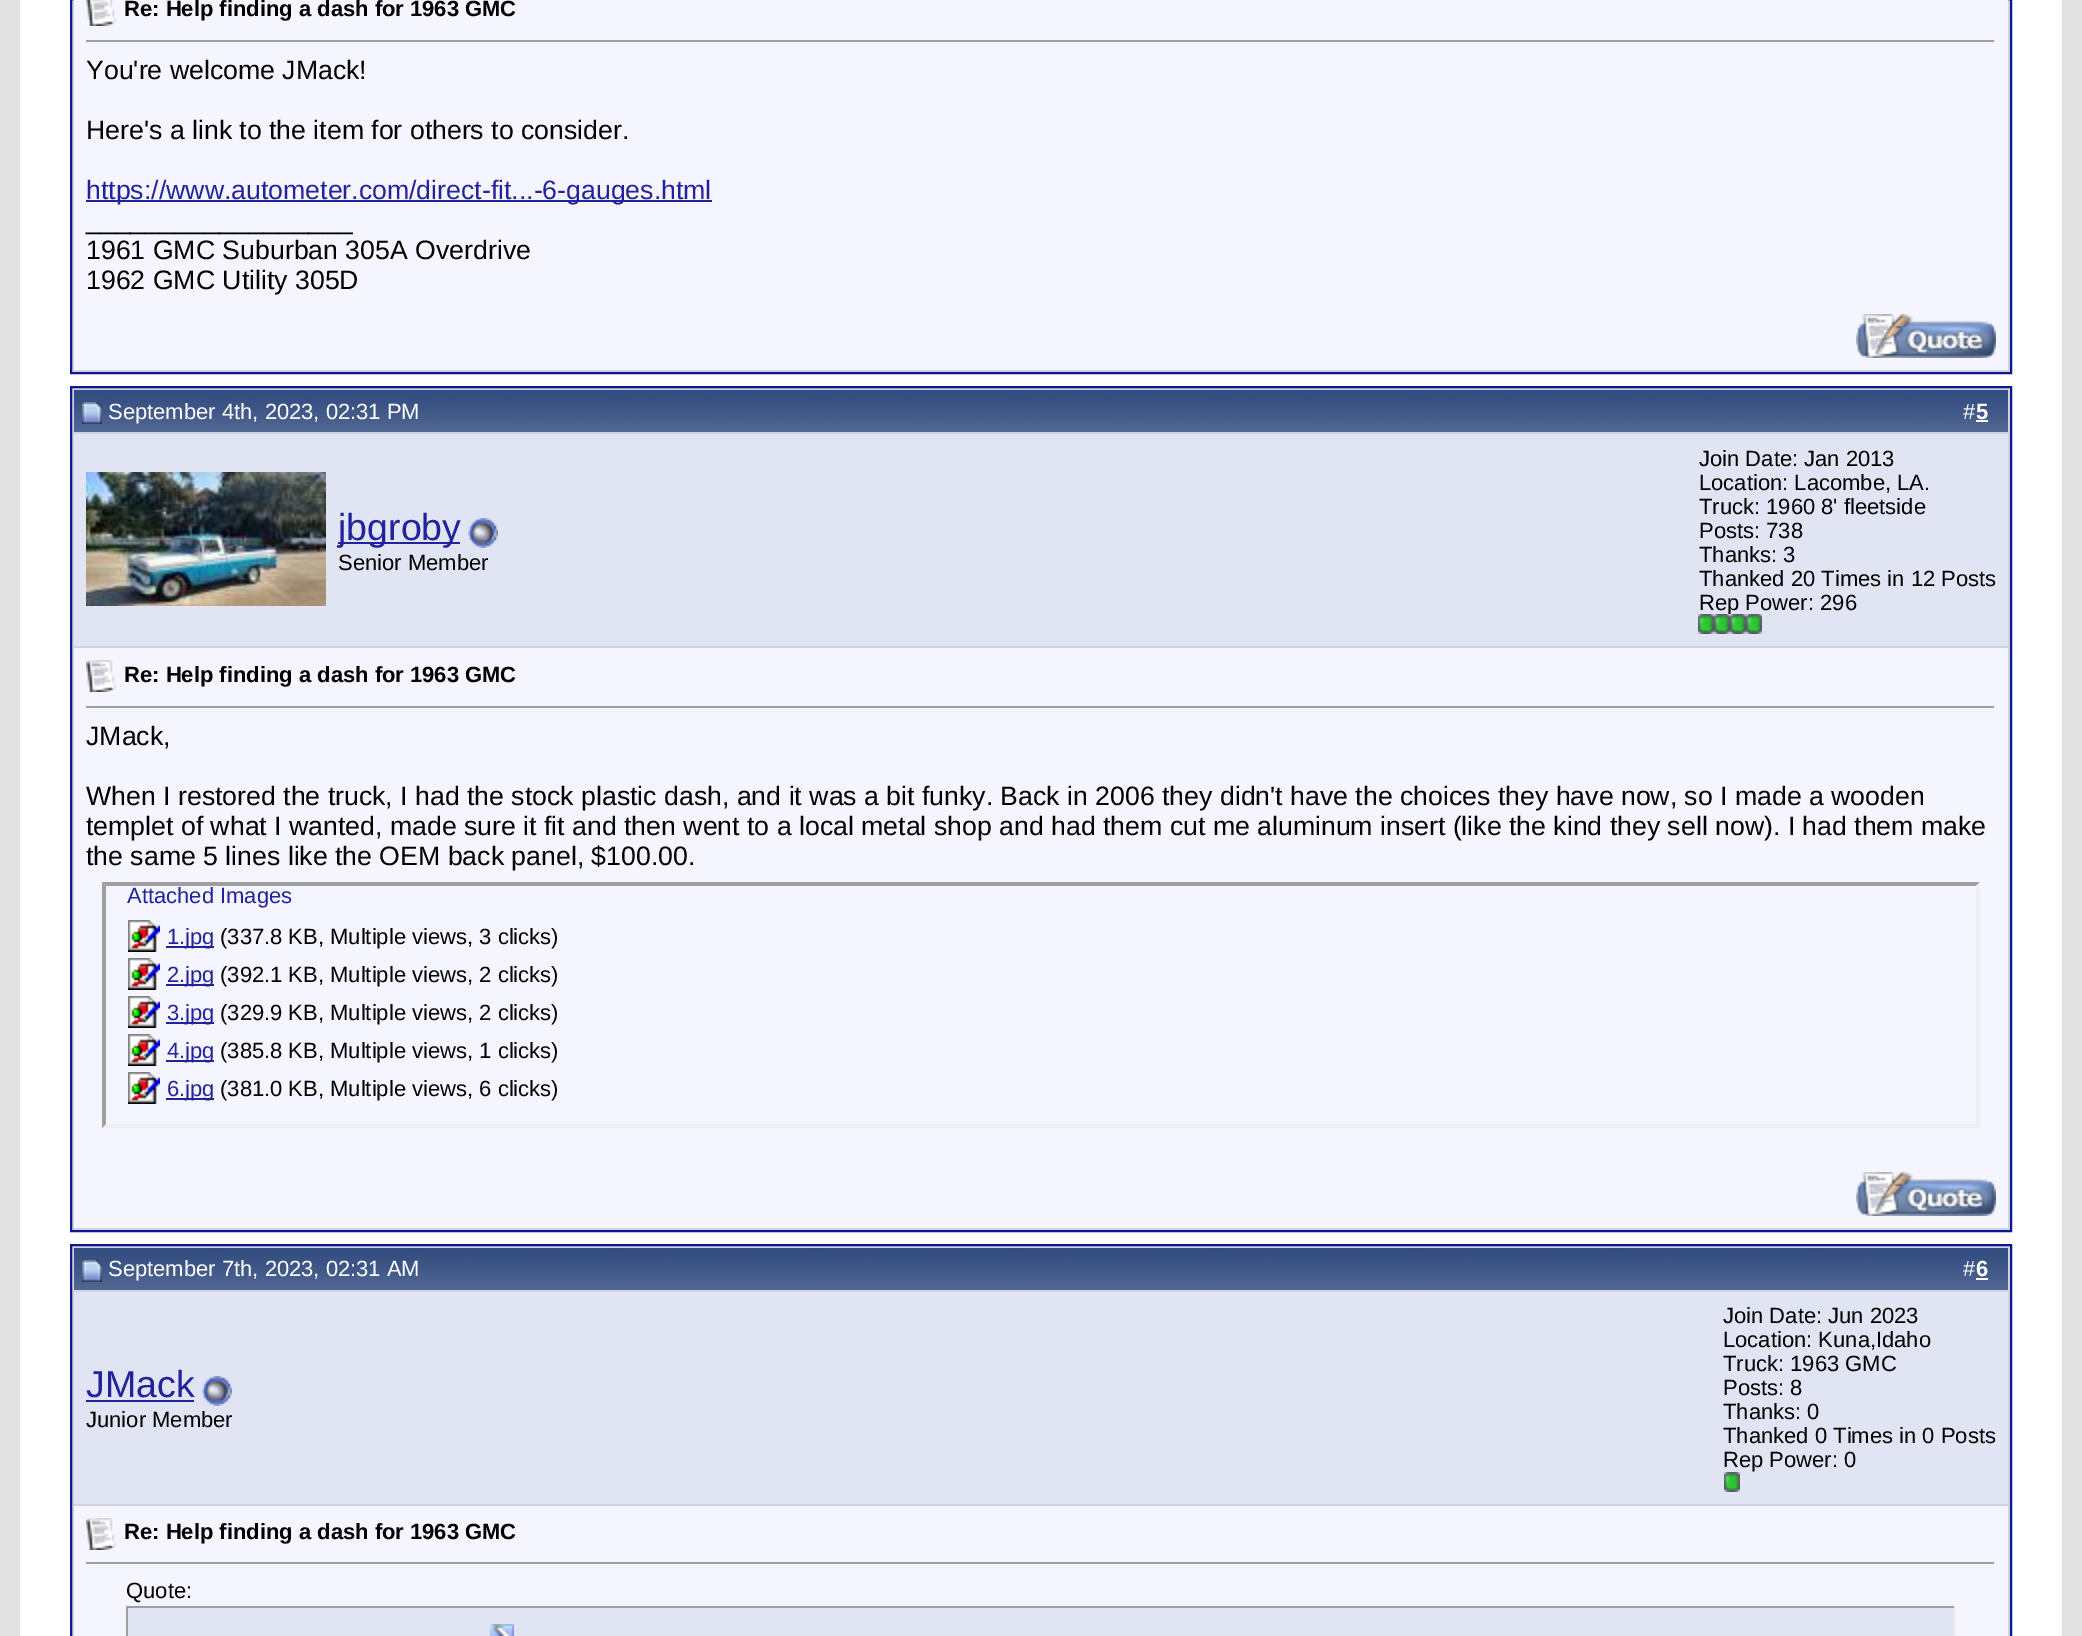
%!PS
<< /PageSize [2082 1636] >> setpagedevice
/rgb { dup -16 bitshift 255 div exch dup -8 bitshift 255 and 255 div exch 255 and 255 div setrgbcolor } def
/font { [ exch dup neg 0 0 3 -1 roll 0 0 ] selectfont } def
/text { moveto show } def
/picture { 5 dict begin { /h /w /y /x /name } { exch def } forall
  gsave x y translate w h scale
  w h 8 [w 0 0 h 0 0] name (r) file false 3 colorimage grestore end } def
0 1636 translate 1 -1 scale
4 setmiterlimit
/s1 { /LiberationSans-Bold 22 font 16#000000 rgb } def
/s2 { /LiberationSans-Regular 26.67 font 16#000000 rgb } def
/s3 { /LiberationSans-Regular 26.67 font 16#22229C rgb } def
/s4 { /LiberationSans-Regular 22 font 16#FFFFFF rgb } def
/s5 { /LiberationSans-Bold 22 font 16#FFFFFF rgb } def
/s6 { /LiberationSans-Regular 37.5 font 16#22229C rgb } def
/s7 { /LiberationSans-Regular 22 font 16#000000 rgb } def
/s8 { /LiberationSans-Regular 22 font 16#22229C rgb } def
16#E1E1E2 rgb
0 0 2082 1636 rectfill
16#FFFFFF rgb
20 0 2042 1636 rectfill
16#D1D1E1 rgb
71 -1 moveto 2011 -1 lineto 2011 373 lineto 71 373 lineto closepath gsave fill grestore
16#0B198C rgb
2 setlinewidth
stroke
16#F5F5FF rgb
74 0 1934 370 rectfill
(pic1.raw) 86 0 31 26 picture
s1
(Re: Help finding a dash for 1963 GMC) 124 16 text
16#9F9F9F rgb
86 40 1910 2 rectfill
16#EEEEEE rgb
1994 40 2 2 rectfill
s2
(You're welcome JMack!) 86 79 text
(Here's a link to the item for others to consider.) 86 139 text
16#22229C rgb
86 200 626 2 rectfill
(https://www.autometer.com/direct-fit...-6-gauges.html) 86 199 text
s2
(__________________) 86 229 text
(1961 GMC Suburban 305A Overdrive) 86 259 text
(1962 GMC Utility 305D) 86 289 text
(pic2.raw) 1856 314 140 44 picture
16#D1D1E1 rgb
71 387 moveto 2011 387 lineto 2011 1231 lineto 71 1231 lineto closepath gsave fill grestore
16#0B198C rgb
stroke
(pic3.raw) 74 390 1934 42 picture
(pic4.raw) 82 402 20 22 picture
s4
(September 4th, 2023, 02:31 PM) 108 419 text
(#) 1963 419 text
s5
(5) 1976 419 text
1976 420 12 2 rectfill
16#E1E4F2 rgb
74 434 1934 212 rectfill
(pic5.raw) 86 472 240 134 picture
16#22229C rgb
338 542 122 2 rectfill
s6
(jbgroby) 338 540 text
(pic6.raw) 468 518 30 30 picture
s7
(Senior Member) 338 570 text
(Join Date: Jan 2013) 1699 466 text
(Location: Lacombe, LA.) 1699 490 text
(Truck: 1960 8' fleetside) 1699 514 text
(Posts: 738) 1699 538 text
(Thanks: 3) 1699 562 text
(Thanked 20 Times in 12 Posts) 1699 586 text
(Rep Power: 296) 1699 610 text
(pic7.raw) 1698 614 16 20 picture
(pic7.raw) 1714 614 16 20 picture
(pic7.raw) 1730 614 16 20 picture
(pic7.raw) 1746 614 16 20 picture
16#F5F5FF rgb
74 648 1934 580 rectfill
(pic8.raw) 86 660 31 32 picture
s1
(Re: Help finding a dash for 1963 GMC) 124 682 text
16#9F9F9F rgb
86 706 1910 2 rectfill
16#EEEEEE rgb
1994 706 2 2 rectfill
s2
(JMack,) 86 745 text
(When I restored the truck, I had the stock plastic dash, and it was a bit funky. Back in 2006 they didn't have the choices they have now, so I made a wooden) 86 805 text
(templet of what I wanted, made sure it fit and then went to a local metal shop and had them cut me aluminum insert \(like the kind they sell now\). I had them make) 86 835 text
(the same 5 lines like the OEM back panel, $100.00.) 86 865 text
16#9F9F9F rgb
102 882 moveto 1980 882 lineto 1976 886 lineto 106 886 lineto closepath fill
16#EFEFEF rgb
1980 882 moveto 1980 1128 lineto 1976 1124 lineto 1976 886 lineto closepath fill
1980 1128 moveto 102 1128 lineto 106 1124 lineto 1976 1124 lineto closepath fill
16#9F9F9F rgb
102 1128 moveto 102 882 lineto 106 886 lineto 106 1124 lineto closepath fill
s8
(Attached Images) 127 903 text
(pic9.raw) 128 920 32 32 picture
166 946 48 2 rectfill
(1.jpg) 167 944 text
s7
(\(337.8 KB, Multiple views, 3 clicks\)) 220 944 text
(pic9.raw) 128 958 32 32 picture
16#22229C rgb
166 984 48 2 rectfill
(2.jpg) 167 982 text
s7
(\(392.1 KB, Multiple views, 2 clicks\)) 220 982 text
(pic9.raw) 128 996 32 32 picture
16#22229C rgb
166 1022 48 2 rectfill
(3.jpg) 167 1020 text
s7
(\(329.9 KB, Multiple views, 2 clicks\)) 220 1020 text
(pic9.raw) 128 1034 32 32 picture
16#22229C rgb
166 1060 48 2 rectfill
(4.jpg) 167 1058 text
s7
(\(385.8 KB, Multiple views, 1 clicks\)) 220 1058 text
(pic9.raw) 128 1072 32 32 picture
16#22229C rgb
166 1098 48 2 rectfill
(6.jpg) 167 1096 text
s7
(\(381.0 KB, Multiple views, 6 clicks\)) 220 1096 text
(pic2.raw) 1856 1172 140 44 picture
16#D1D1E1 rgb
71 1245 moveto 2011 1245 lineto 2011 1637 lineto 71 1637 lineto closepath gsave fill grestore
16#0B198C rgb
stroke
(pic3.raw) 74 1248 1934 42 picture
(pic4.raw) 82 1260 20 22 picture
s4
(September 7th, 2023, 02:31 AM) 108 1276 text
(#) 1963 1276 text
s5
(6) 1976 1276 text
1976 1278 12 2 rectfill
16#E1E4F2 rgb
74 1292 1934 212 rectfill
s6
(JMack) 86 1397 text
86 1400 108 2 rectfill
(pic6.raw) 202 1376 30 30 picture
s7
(Junior Member) 86 1427 text
(Join Date: Jun 2023) 1723 1323 text
(Location: Kuna,Idaho) 1723 1347 text
(Truck: 1963 GMC) 1723 1371 text
(Posts: 8) 1723 1395 text
(Thanks: 0) 1723 1419 text
(Thanked 0 Times in 0 Posts) 1723 1443 text
(Rep Power: 0) 1723 1467 text
(pic7.raw) 1724 1472 16 20 picture
16#F5F5FF rgb
74 1506 1934 130 rectfill
(pic8.raw) 86 1518 31 32 picture
s1
(Re: Help finding a dash for 1963 GMC) 124 1539 text
16#9F9F9F rgb
86 1562 1910 2 rectfill
16#EEEEEE rgb
1994 1562 2 2 rectfill
s7
(Quote:) 126 1598 text
16#E1E4F2 rgb
128 1608 1826 28 rectfill
16#9F9F9F rgb
126 1606 1830 2 rectfill
16#EEEEEE rgb
1954 1606 2 30 rectfill
16#9F9F9F rgb
126 1606 2 30 rectfill
(pic10.raw) 490 1624 24 12 picture
showpage
